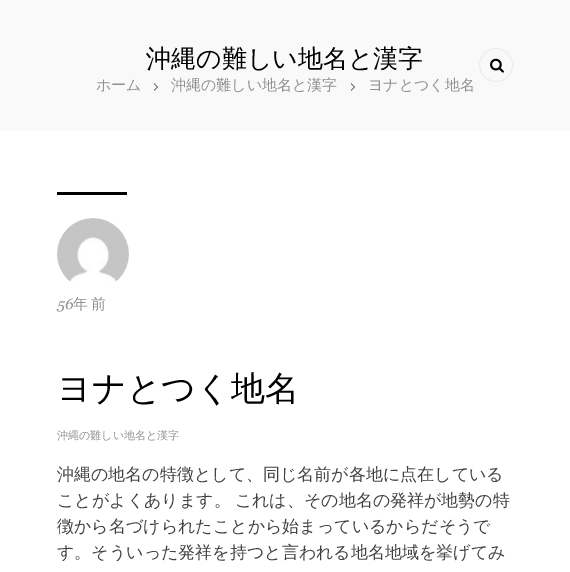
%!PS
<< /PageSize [570 572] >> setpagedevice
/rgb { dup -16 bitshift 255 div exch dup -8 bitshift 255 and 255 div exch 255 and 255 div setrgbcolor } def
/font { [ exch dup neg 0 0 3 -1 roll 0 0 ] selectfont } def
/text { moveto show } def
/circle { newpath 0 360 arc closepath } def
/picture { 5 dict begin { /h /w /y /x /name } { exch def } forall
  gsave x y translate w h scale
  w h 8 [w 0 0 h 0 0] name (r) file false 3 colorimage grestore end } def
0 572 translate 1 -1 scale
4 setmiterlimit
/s1 { /WenQuanYiZenHei-Medium 25 font 16#000000 rgb } def
/s2 { /WenQuanYiZenHei-Medium 15 font 16#909090 rgb } def
/s3 { /Georgia-Italic 15 font 16#909090 rgb } def
/s4 { /WenQuanYiZenHei-Medium 34 font 16#000000 rgb } def
/s5 { /WenQuanYiZenHei-Medium 11 font 16#909090 rgb } def
/s6 { /WenQuanYiZenHei-Medium 17 font 16#414141 rgb } def
16#FFFFFF rgb
0 0 570 572 rectfill
16#F9F9F9 rgb
0 0 570 131 rectfill
16#EDEDED rgb
496 65 16.5 circle stroke
(pic1.raw) 490 58 14 15 picture
s1
(沖縄の難しい地名と漢字) 146 67 text
s2
(ホーム) 96 90 text
(pic2.raw) 154 83 4 8 picture
(沖縄の難しい地名と漢字) 171 90 text
(pic2.raw) 351 83 4 8 picture
(ヨナとつく地名) 368 90 text
16#000000 rgb
57 192 70 3 rectfill
(pic3.raw) 57 218 72 64 picture
s3
(56) 57 309 text
/WenQuanYiZenHei-Medium 15 font
73 309 moveto -1 0 32 (年 前) widthshow
s4
(ヨナとつく地名) 57 400 text
s5
(沖縄の難しい地名と漢字) 57 439 text
s6
(沖縄の地名の特徴として、同じ名前が各地に点在している) 57 480 text
57 506 moveto -1 0 32 (ことがよくあります。 これは、その地名の発祥が地勢の特) widthshow
(徴から名づけられたことから始まっているからだそうで) 57 532 text
(す。そういった発祥を持つと言われる地名地域を挙げてみ) 57 558 text
showpage
